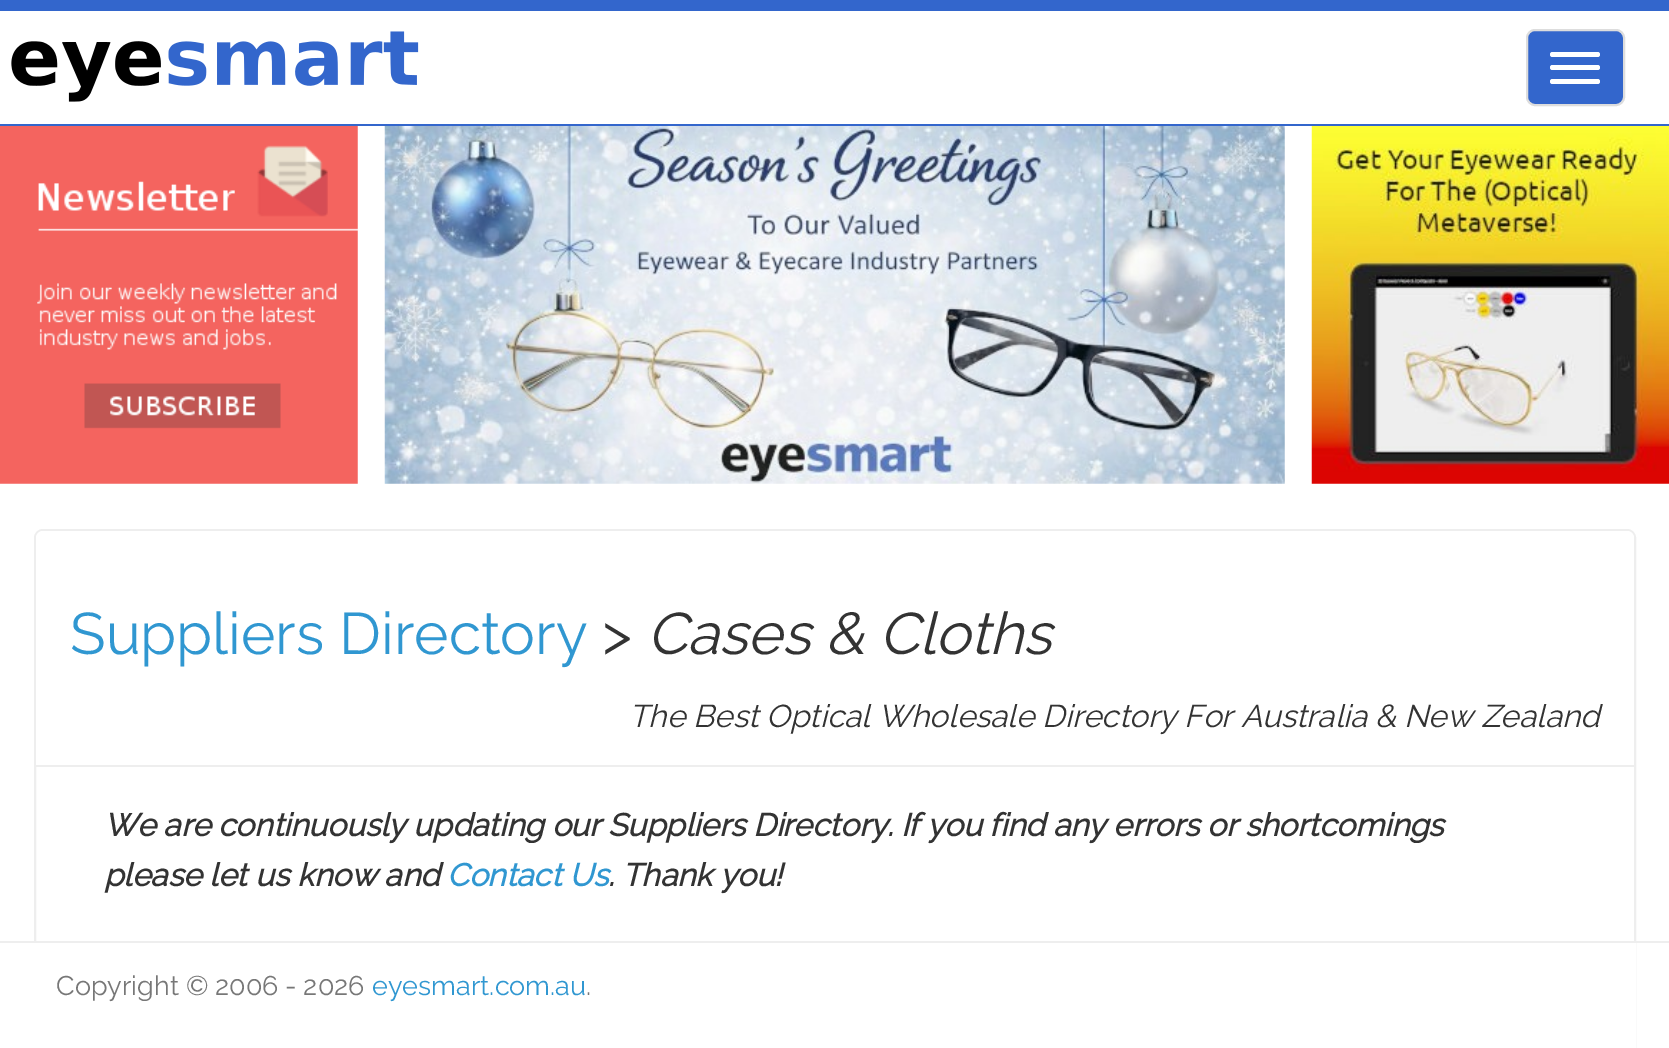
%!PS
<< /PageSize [1669 1048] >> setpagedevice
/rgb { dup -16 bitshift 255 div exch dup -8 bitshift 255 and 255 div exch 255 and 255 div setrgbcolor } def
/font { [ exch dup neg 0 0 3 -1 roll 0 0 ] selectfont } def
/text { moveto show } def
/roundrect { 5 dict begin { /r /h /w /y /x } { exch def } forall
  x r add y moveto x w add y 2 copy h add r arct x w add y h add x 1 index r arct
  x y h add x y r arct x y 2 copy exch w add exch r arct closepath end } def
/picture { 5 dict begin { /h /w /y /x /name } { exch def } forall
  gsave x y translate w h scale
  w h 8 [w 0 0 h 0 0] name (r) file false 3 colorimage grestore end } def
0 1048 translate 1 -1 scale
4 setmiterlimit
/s1 { /Raleway-Thin 58.5 font 16#3097D1 rgb } def
/s2 { /Raleway-Thin 58.5 font 16#333333 rgb } def
/s3 { /Raleway-ThinItalic 58.5 font 16#333333 rgb } def
/s4 { /Raleway-ThinItalic 31.5 font 16#333333 rgb } def
/s5 { /Raleway-BoldItalic 31.5 font 16#333333 rgb } def
/s6 { /Raleway-BoldItalic 31.5 font 16#3097D1 rgb } def
/s7 { /Raleway-Thin 27 font 16#777777 rgb } def
/s8 { /Raleway-Thin 27 font 16#3097D1 rgb } def
16#FFFFFF rgb
0 0 1669 1048 rectfill
16#3366CC rgb
0 0 1669 11 rectfill
(pic1.raw) 11 31 408 71 picture
1527 30 97 75 8 roundrect gsave fill grestore
16#DDDDDD rgb
2 setlinewidth
stroke
16#FFFFFF rgb
1550 52 50 5 2.5 roundrect fill
1550 65 50 5 2.5 roundrect fill
1550 79 50 5 2.5 roundrect fill
16#3366CC rgb
0 124 1669 2 rectfill
(pic2.raw) 0 126 358 358 picture
(pic3.raw) 384 126 901 358 picture
(pic4.raw) 1311 126 358 358 picture
16#EEEEEE rgb
35 530 1600 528 8 roundrect stroke
16#FFFFFF rgb
43 531 moveto 1627 531 lineto 1631 531 1634 534 1634 538 curveto 1634 767 lineto 36 767 lineto 36 538 lineto 36 534 39 531 43 531 curveto closepath fill
16#EEEEEE rgb
36 765 1598 2 rectfill
s1
(Suppliers Directory) 70 654 text
s2
(>) 602 654 text
s3
(Cases & Cloths) 647 654 text
s4
(The Best Optical Wholesale Directory For Australia & New Zealand) 629 727 text
s5
(We are continuously updating our Suppliers Directory. If you find any errors or shortcomings) 104 836 text
(please let us know and) 104 886 text
s6
(Contact Us) 447 886 text
s5
(. Thank you!) 608 886 text
16#FFFFFF rgb
34 943 1602 105 rectfill
16#EEEEEE rgb
0 941 1669 2 rectfill
s7
(Copyright © 2006 - 2026) 56 995 text
s8
(eyesmart.com.au) 372 995 text
s7
(.) 586 995 text
showpage
